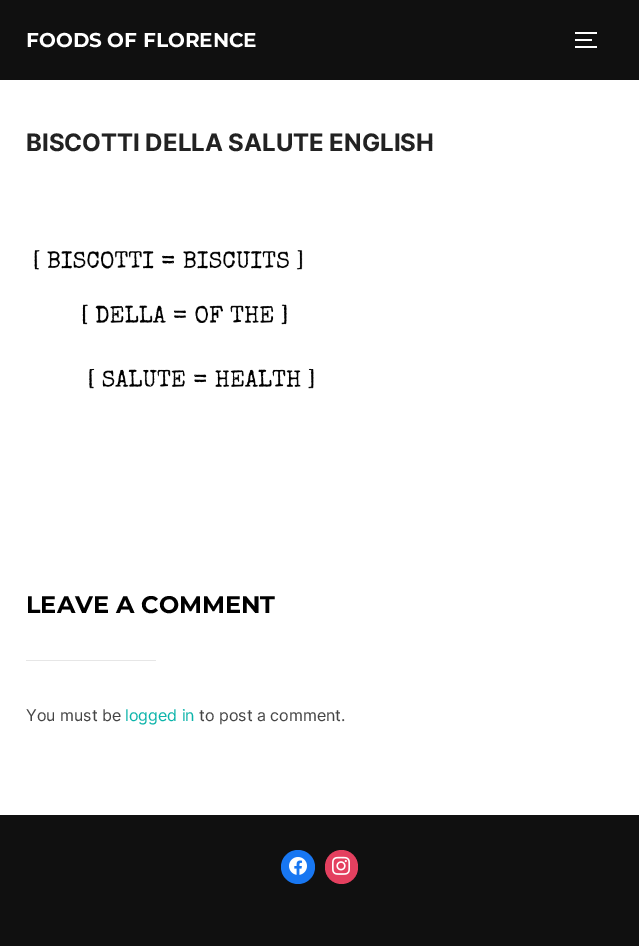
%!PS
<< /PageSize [639 946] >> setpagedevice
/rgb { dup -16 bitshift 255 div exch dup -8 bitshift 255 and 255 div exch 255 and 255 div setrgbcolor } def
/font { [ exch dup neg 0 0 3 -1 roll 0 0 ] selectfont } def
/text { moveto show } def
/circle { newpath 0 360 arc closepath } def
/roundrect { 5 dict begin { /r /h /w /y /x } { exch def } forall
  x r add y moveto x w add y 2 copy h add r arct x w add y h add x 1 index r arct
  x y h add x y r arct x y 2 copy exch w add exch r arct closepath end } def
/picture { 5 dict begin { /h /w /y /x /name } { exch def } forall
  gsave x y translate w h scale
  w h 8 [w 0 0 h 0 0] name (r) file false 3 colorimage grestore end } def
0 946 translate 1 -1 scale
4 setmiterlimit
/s1 { /Montserrat-Bold 20 font 16#FFFFFF rgb } def
/s2 { /Inter-Bold 24 font 16#222222 rgb } def
/s3 { /Montserrat-Bold 24 font 16#000000 rgb } def
/s4 { /Inter-Regular 16 font 16#444444 rgb } def
/s5 { /Inter-Regular 16 font 16#0BB4AA rgb } def
16#FFFFFF rgb
0 0 639 946 rectfill
16#101010 rgb
0 0 639 80 rectfill
s1
(FOODS OF FLORENCE) 26 47 text
575 32 22 2 rectfill
575 39 17 2 rectfill
575 46 22 2 rectfill
s2
(BISCOTTI DELLA SALUTE ENGLISH) 26 151 text
(pic1.raw) 34 250 280 139 picture
s3
(LEAVE A COMMENT) 26 613 text
16#E6E6E6 rgb
26 660 130 1 rectfill
s4
(You must be) 26 721 text
s5
(logged in) 125 721 text
s4
(to post a comment.) 199 721 text
16#101010 rgb
0 815 639 131 rectfill
16#1877F2 rgb
298 867 17 circle fill
(pic2.raw) 289 857 18 18 picture
16#E4405F rgb
325 850 33 34 16.5 roundrect fill
(pic3.raw) 332 856 18 19 picture
showpage
